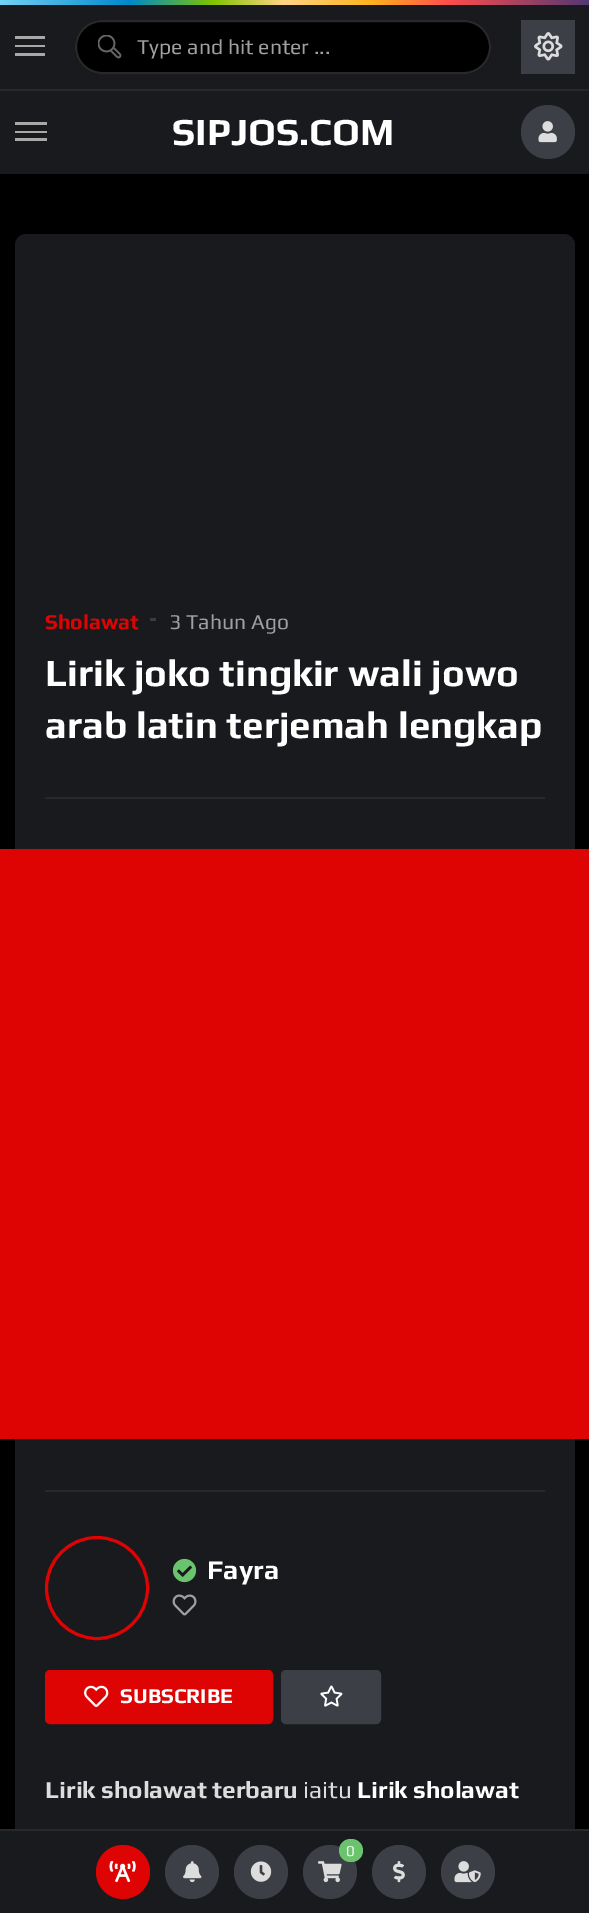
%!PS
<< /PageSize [589 1913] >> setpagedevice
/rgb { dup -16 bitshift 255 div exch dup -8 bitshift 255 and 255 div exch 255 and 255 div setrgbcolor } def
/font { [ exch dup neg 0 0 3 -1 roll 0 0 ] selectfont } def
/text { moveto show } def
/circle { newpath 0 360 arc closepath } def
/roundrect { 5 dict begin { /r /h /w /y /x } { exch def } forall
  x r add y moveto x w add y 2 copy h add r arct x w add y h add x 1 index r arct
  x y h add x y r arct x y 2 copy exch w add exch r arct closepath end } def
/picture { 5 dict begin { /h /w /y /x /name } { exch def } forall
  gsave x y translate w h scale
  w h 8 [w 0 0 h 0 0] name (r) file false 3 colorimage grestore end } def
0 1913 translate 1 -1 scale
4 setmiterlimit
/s1 { /Play-Regular 21.1 font 16#A0A0A0 rgb } def
/s2 { /Play-Regular 15 font 16#FFFFFF rgb } def
/s3 { /Play-Bold 38.4 font 16#FFFFFF rgb } def
/s4 { /Play-Bold 21.1 font 16#DE0404 rgb } def
/s5 { /Play-Bold 27 font 16#FFFFFF rgb } def
/s6 { /Play-Bold 21.1 font 16#FFFFFF rgb } def
/s7 { /Play-Bold 24.25 font 16#DDDDDD rgb } def
/s8 { /Play-Regular 24.25 font 16#DDDDDD rgb } def
/s9 { /Play-Bold 24.25 font 16#FFFFFF rgb } def
16#010001 rgb
0 0 589 1913 rectfill
gsave 0 0 moveto 589 0 lineto 589 5 lineto 0 5 lineto closepath clip newpath
<< /ShadingType 2 /ColorSpace /DeviceRGB /Coords [0 2.3 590 2.2] /Extend [true true] /Function << /FunctionType 3 /Domain [0 1] /Functions [<< /FunctionType 2 /Domain [0 1] /C0 [0.451 0.824 0.965] /C1 [0 0.533 0.8] /N 1 >> << /FunctionType 2 /Domain [0 1] /C0 [0 0.533 0.8] /C1 [0.498 0.769 0] /N 1 >> << /FunctionType 2 /Domain [0 1] /C0 [0.498 0.769 0] /C1 [1 0.835 0.514] /N 1 >> << /FunctionType 2 /Domain [0 1] /C0 [1 0.835 0.514] /C1 [1 0.698 0.118] /N 1 >> << /FunctionType 2 /Domain [0 1] /C0 [1 0.698 0.118] /C1 [1 0.302 0.302] /N 1 >> << /FunctionType 2 /Domain [0 1] /C0 [1 0.302 0.302] /C1 [0.314 0.22 0.451] /N 1 >>] /Bounds [0.22 0.36 0.48 0.63 0.76] /Encode [0 1 0 1 0 1 0 1 0 1 0 1] >> >> shfill grestore
16#191A1D rgb
0 5 589 84 rectfill
16#282828 rgb
0 89 589 2 rectfill
16#A8A8A8 rgb
15 36 30 3 rectfill
15 45 30 2 rectfill
15 53 30 3 rectfill
16#010001 rgb
75 20 416 54 27 roundrect fill
(pic1.raw) 98 35 24 24 picture
16#282928 rgb
2 setlinewidth
76 21 414 52 26 roundrect stroke
s1
(Type and hit enter ...) 137 54 text
16#3C3F46 rgb
521 20 54 54 rectfill
(pic2.raw) 534 32 29 29 picture
16#191A1D rgb
15 234 560 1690 11 roundrect fill
0 1831 589 82 rectfill
16#282828 rgb
0 1829 589 2 rectfill
16#DE0404 rgb
123 1872 27 circle fill
(pic3.raw) 109 1861 27 22 picture
16#3C3F46 rgb
192 1872 27 circle fill
(pic4.raw) 183 1861 19 22 picture
261 1872 27 circle fill
(pic5.raw) 250 1861 22 21 picture
330 1872 27 circle fill
(pic6.raw) 318 1861 24 22 picture
16#6AC46D rgb
339 1839 24 23 11.5 roundrect fill
s2
(0) 346 1856 text
16#3C3F46 rgb
399 1872 27 circle fill
(pic7.raw) 393 1861 12 22 picture
468 1872 27 circle fill
(pic8.raw) 454 1861 27 22 picture
16#191A1D rgb
0 91 589 83 rectfill
16#A8A8A8 rgb
15 122 32 3 rectfill
15 131 32 2 rectfill
15 138 32 3 rectfill
s3
(SIPJOS.COM) 172 145 text
16#3C3F46 rgb
548 132 27 circle fill
(pic9.raw) 538 121 19 22 picture
s4
(Sholawat) 45 629 text
16#3C3C3F rgb
150 618 6 3 rectfill
s1
(3 Tahun Ago) 169 629 text
s3
(Lirik joko tingkir wali jowo) 45 686 text
(arab latin terjemah lengkap) 45 738 text
16#282828 rgb
45 797 500 2 rectfill
45 1490 500 2 rectfill
16#DE0404 rgb
0 849 589 590 rectfill
3 setlinewidth
97 1588 50.5 circle stroke
(pic10.raw) 172 1558 25 25 picture
s5
(Fayra) 207 1579 text
(pic11.raw) 172 1594 25 22 picture
16#DE0404 rgb
46 1671 226 52 4 roundrect gsave fill grestore
2 setlinewidth
stroke
(pic12.raw) 84 1685 25 22 picture
s6
(SUBSCRIBE) 120 1703 text
16#3C3F46 rgb
282 1671 98 52 4 roundrect gsave fill grestore
stroke
(pic13.raw) 320 1685 23 22 picture
s7
(Lirik sholawat terbaru) 45 1798 text
s8
(iaitu) 303 1798 text
s9
(Lirik sholawat) 357 1798 text
showpage
